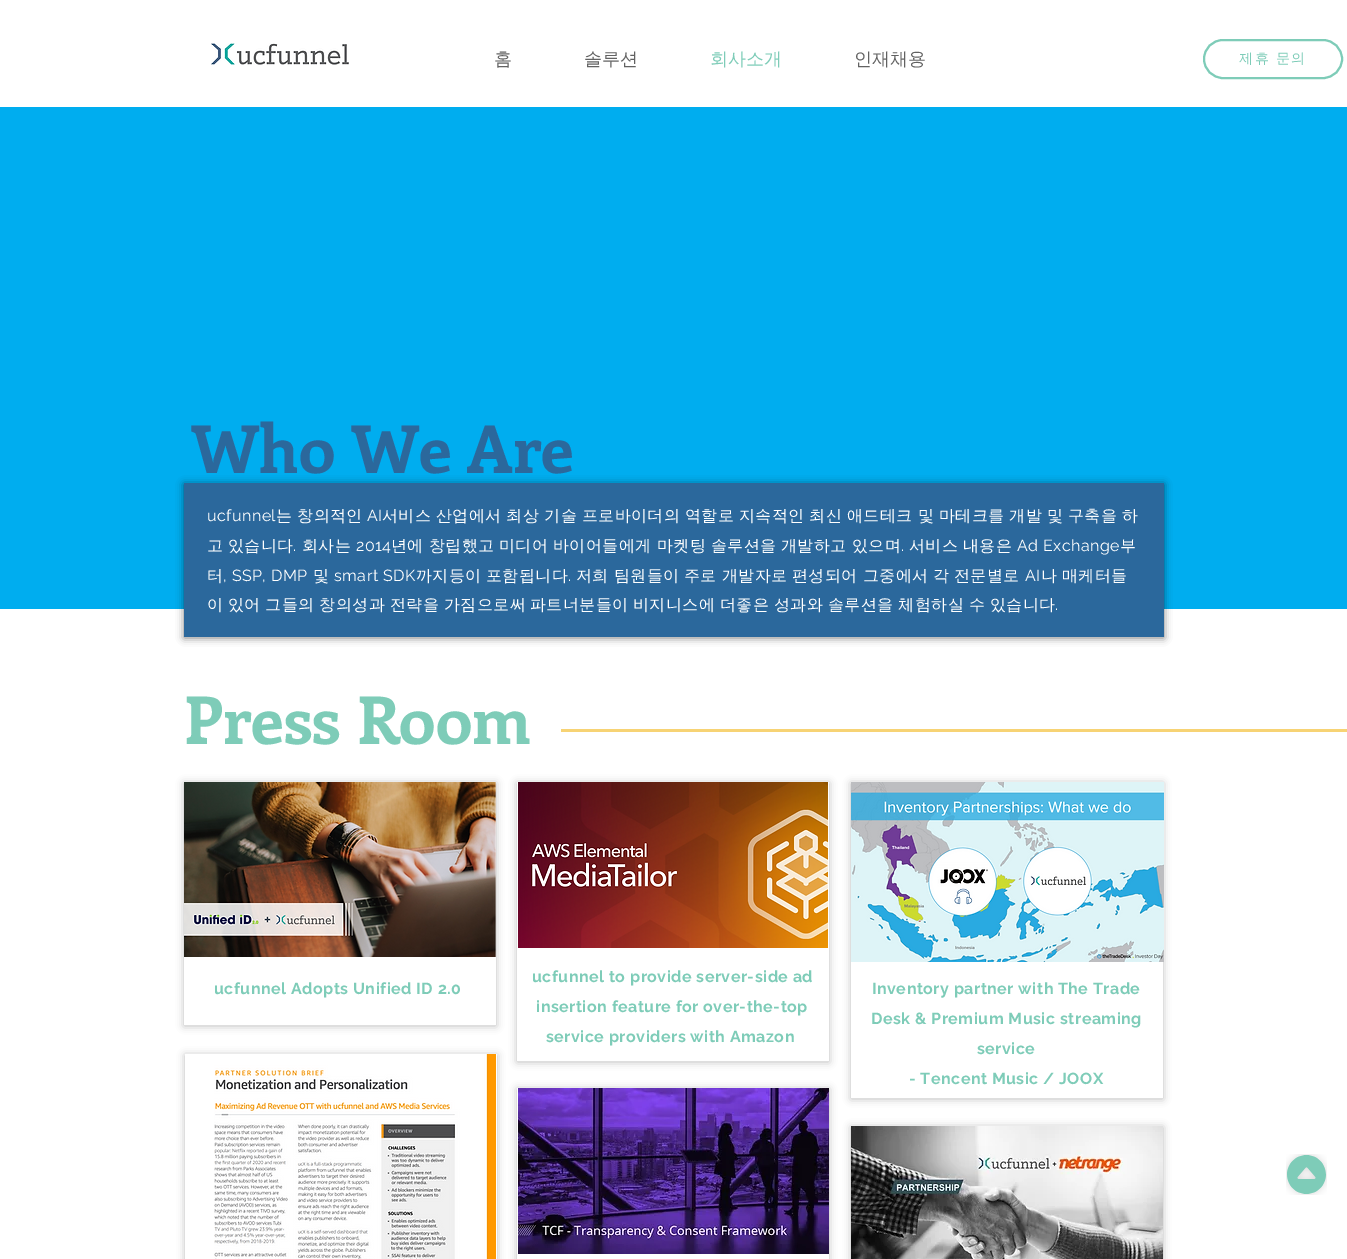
%!PS
<< /PageSize [1347 1259] /PageUsesTransparency true >> setpagedevice
/rgb { dup -16 bitshift 255 div exch dup -8 bitshift 255 and 255 div exch 255 and 255 div setrgbcolor } def
/font { [ exch dup neg 0 0 3 -1 roll 0 0 ] selectfont } def
/text { moveto show } def
/alpha { dup .setfillconstantalpha .setstrokeconstantalpha } def
/roundrect { 5 dict begin { /r /h /w /y /x } { exch def } forall
  x r add y moveto x w add y 2 copy h add r arct x w add y h add x 1 index r arct
  x y h add x y r arct x y 2 copy exch w add exch r arct closepath end } def
/shadow { 12 dict begin { /a /b /q /h /w /y /x } { exch def } forall gsave /was 0 def
  9 -2 -9 { dup b mul 4 div /e exch def 1 sub .425 mul 2.718 exch exp 1 add a .99 .min exch div /now exch def
    1 1 now sub 1 was sub div sub alpha /was now def
    w h .min e 2 mul add 0 gt { x e sub y e sub w e 2 mul add h e 2 mul add
      q e add b .6 mul add w h .min 2 div e add .min 0 .max roundrect fill } if } for grestore end } def
/picture { 5 dict begin { /h /w /y /x /name } { exch def } forall
  gsave x y translate w h scale
  w h 8 [w 0 0 h 0 0] name (r) file false 3 colorimage grestore end } def
0 .pushpdf14devicefilter
0 1259 translate 1 -1 scale
4 setmiterlimit
/s1 { /WenQuanYiZenHei-Medium 18 font 16#626262 rgb } def
/s2 { /WenQuanYiZenHei-Medium 18 font 16#7ECCB8 rgb } def
/s3 { /Enriqueta-Bold 66 font 16#2B689C rgb } def
/s4 { /Enriqueta-Bold 66 font 16#7ECCB8 rgb } def
16#FFFFFF rgb
0 0 1347 1259 rectfill
(pic1.raw) 211 43 138 22 picture
s1
(홈) 494 65 text
(솔루션) 584 65 text
s2
(회사소개) 710 65 text
s1
(인재채용) 854 65 text
16#7ECCB8 rgb
2 setlinewidth
1204 40 138 38 19 roundrect stroke
/WenQuanYiZenHei-Medium 14 font
1239 63 moveto 1.5 0 (제휴 문의) ashow
16#00ADEF rgb
0 107 1347 502 rectfill
s3
(Who We Are) 191 473 text
16#000000 rgb
184 484 980 154 0 4 0.51 shadow
16#2B689C rgb
184 483 980 154 rectfill
/Raleway-Regular 16 font
16#FFFFFF rgb
207 521 moveto 0.48 0 (ucfunnel) ashow
/WenQuanYiZenHei-Medium 16 font
276 521 moveto -0.7 0 32 0.48 0 (는 창의적인) awidthshow
/Raleway-Regular 16 font
367 521 moveto 0.48 0 (AI) ashow
/WenQuanYiZenHei-Medium 16 font
382 521 moveto -0.7 0 32 0.48 0 (서비스 산업에서 최상 기술 프로바이더의 역할로 지속적인 최신 애드테크 및 마테크를 개발 및 구축을 하) awidthshow
207 551 moveto 0.48 0 (고) ashow
228 551 moveto 0.48 0 (있습니다) ashow
/Raleway-Regular 16 font
293 551 moveto 0.48 0 (.) ashow
/WenQuanYiZenHei-Medium 16 font
302 551 moveto 0.48 0 (회사는) ashow
/Raleway-Regular 16 font
356 551 moveto 0.48 0 (2014) ashow
/WenQuanYiZenHei-Medium 16 font
391 551 moveto 0.48 0 (년에) ashow
429 551 moveto 0.48 0 (창립했고) ashow
499 551 moveto 0.48 0 (미디어) ashow
553 551 moveto 0.48 0 (바이어들에게) ashow
657 551 moveto 0.48 0 (마켓팅) ashow
711 551 moveto 0.48 0 (솔루션을) ashow
781 551 moveto 0.48 0 (개발하고) ashow
852 551 moveto 0.48 0 (있으며) ashow
/Raleway-Regular 16 font
901 551 moveto 0.48 0 (.) ashow
/WenQuanYiZenHei-Medium 16 font
909 551 moveto 0.48 0 (서비스) ashow
963 551 moveto 0.48 0 (내용은) ashow
/Raleway-Regular 16 font
1017 551 moveto 0.48 0 (Ad Exchange) ashow
/WenQuanYiZenHei-Medium 16 font
1120 551 moveto 0.48 0 (부) ashow
207 581 moveto 0.48 0 (터) ashow
/Raleway-Regular 16 font
223 581 moveto 0.48 0 (, SSP, DMP) ashow
/WenQuanYiZenHei-Medium 16 font
313 581 moveto 0.48 0 (및) ashow
/Raleway-Regular 16 font
334 581 moveto 0.48 0 (smart SDK) ashow
/WenQuanYiZenHei-Medium 16 font
416 581 moveto 0.48 0 (까지등이) ashow
486 581 moveto 0.48 0 (포함됩니다) ashow
/Raleway-Regular 16 font
568 581 moveto 0.48 0 (.) ashow
/WenQuanYiZenHei-Medium 16 font
576 581 moveto 0.48 0 (저희) ashow
614 581 moveto 0.48 0 (팀원들이) ashow
684 581 moveto 0.48 0 (주로) ashow
722 581 moveto 0.48 0 (개발자로) ashow
792 581 moveto 0.48 0 (편성되어) ashow
863 581 moveto 0.48 0 (그중에서) ashow
933 581 moveto 0.48 0 (각) ashow
954 581 moveto 0.48 0 (전문별로) ashow
/Raleway-Regular 16 font
1025 581 moveto 0.48 0 (AI) ashow
/WenQuanYiZenHei-Medium 16 font
1041 581 moveto 0.48 0 (나) ashow
1062 581 moveto 0.48 0 (매케터들) ashow
207 610 moveto -0.75 0 32 0.48 0 (이 있어 그들의 창의성과 전략을 가짐으로써) awidthshow
530 610 moveto 0.48 0 (파트너분들이) ashow
633 610 moveto -0.75 0 32 0.48 0 (비지니스에 더좋은 성과와 솔루션을 체험하실 수 있습니다) awidthshow
/Raleway-Regular 16 font
1055 610 moveto 0.48 0 (.) ashow
s4
(Press Room) 184 744 text
16#F7D374 rgb
561 729 786 3 rectfill
gsave
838 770 moveto 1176 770 lineto 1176 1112 lineto 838 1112 lineto closepath 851 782 moveto 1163 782 lineto 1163 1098 lineto 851 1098 lineto closepath eoclip newpath
16#000000 rgb
851 783 312 316 0 4 0.25 shadow
grestore
(pic2.raw) 851 782 313 180 picture
gsave
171 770 moveto 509 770 lineto 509 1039 lineto 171 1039 lineto closepath 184 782 moveto 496 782 lineto 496 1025 lineto 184 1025 lineto closepath eoclip newpath
16#000000 rgb
184 783 312 243 0 4 0.25 shadow
grestore
(pic3.raw) 184 782 312 175 picture
/Raleway-Bold 16 font
16#7ECCB8 rgb
214 994 moveto 0.48 0 (ucfunnel Adopts Unified ID 2.0) ashow
gsave
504 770 moveto 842 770 lineto 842 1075 lineto 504 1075 lineto closepath 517 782 moveto 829 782 lineto 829 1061 lineto 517 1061 lineto closepath eoclip newpath
16#000000 rgb
517 783 312 279 0 4 0.25 shadow
grestore
(pic4.raw) 518 782 310 166 picture
532 982 moveto 0.48 0 (ucfunnel to provide server-side ad) ashow
536 1012 moveto 0.48 0 (insertion feature for over-the-top) ashow
546 1042 moveto 0.48 0 (service providers with Amazon) ashow
872 994 moveto 0.48 0 (Inventory partner with The Trade) ashow
871 1024 moveto 0.48 0 (Desk & Premium Music streaming) ashow
977 1054 moveto 0.48 0 (service) ashow
909 1084 moveto 0.48 0 (- Tencent Music / JOOX) ashow
gsave
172 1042 moveto 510 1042 lineto 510 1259 lineto 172 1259 lineto closepath 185 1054 moveto 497 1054 lineto 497 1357 lineto 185 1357 lineto closepath eoclip newpath
16#000000 rgb
185 1055 312 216 0 4 0.25 shadow
grestore
(pic5.raw) 214 1054 282 205 picture
gsave
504 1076 moveto 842 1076 lineto 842 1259 lineto 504 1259 lineto closepath 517 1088 moveto 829 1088 lineto 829 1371 lineto 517 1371 lineto closepath eoclip newpath
16#000000 rgb
517 1089 312 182 0 4 0.25 shadow
grestore
(pic6.raw) 518 1088 311 166 picture
16#000000 rgb
851 1127 312 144 0 4 0.25 shadow
(pic7.raw) 851 1126 312 133 picture
(pic8.raw) 1286 1154 41 41 picture
.poppdf14devicefilter showpage
